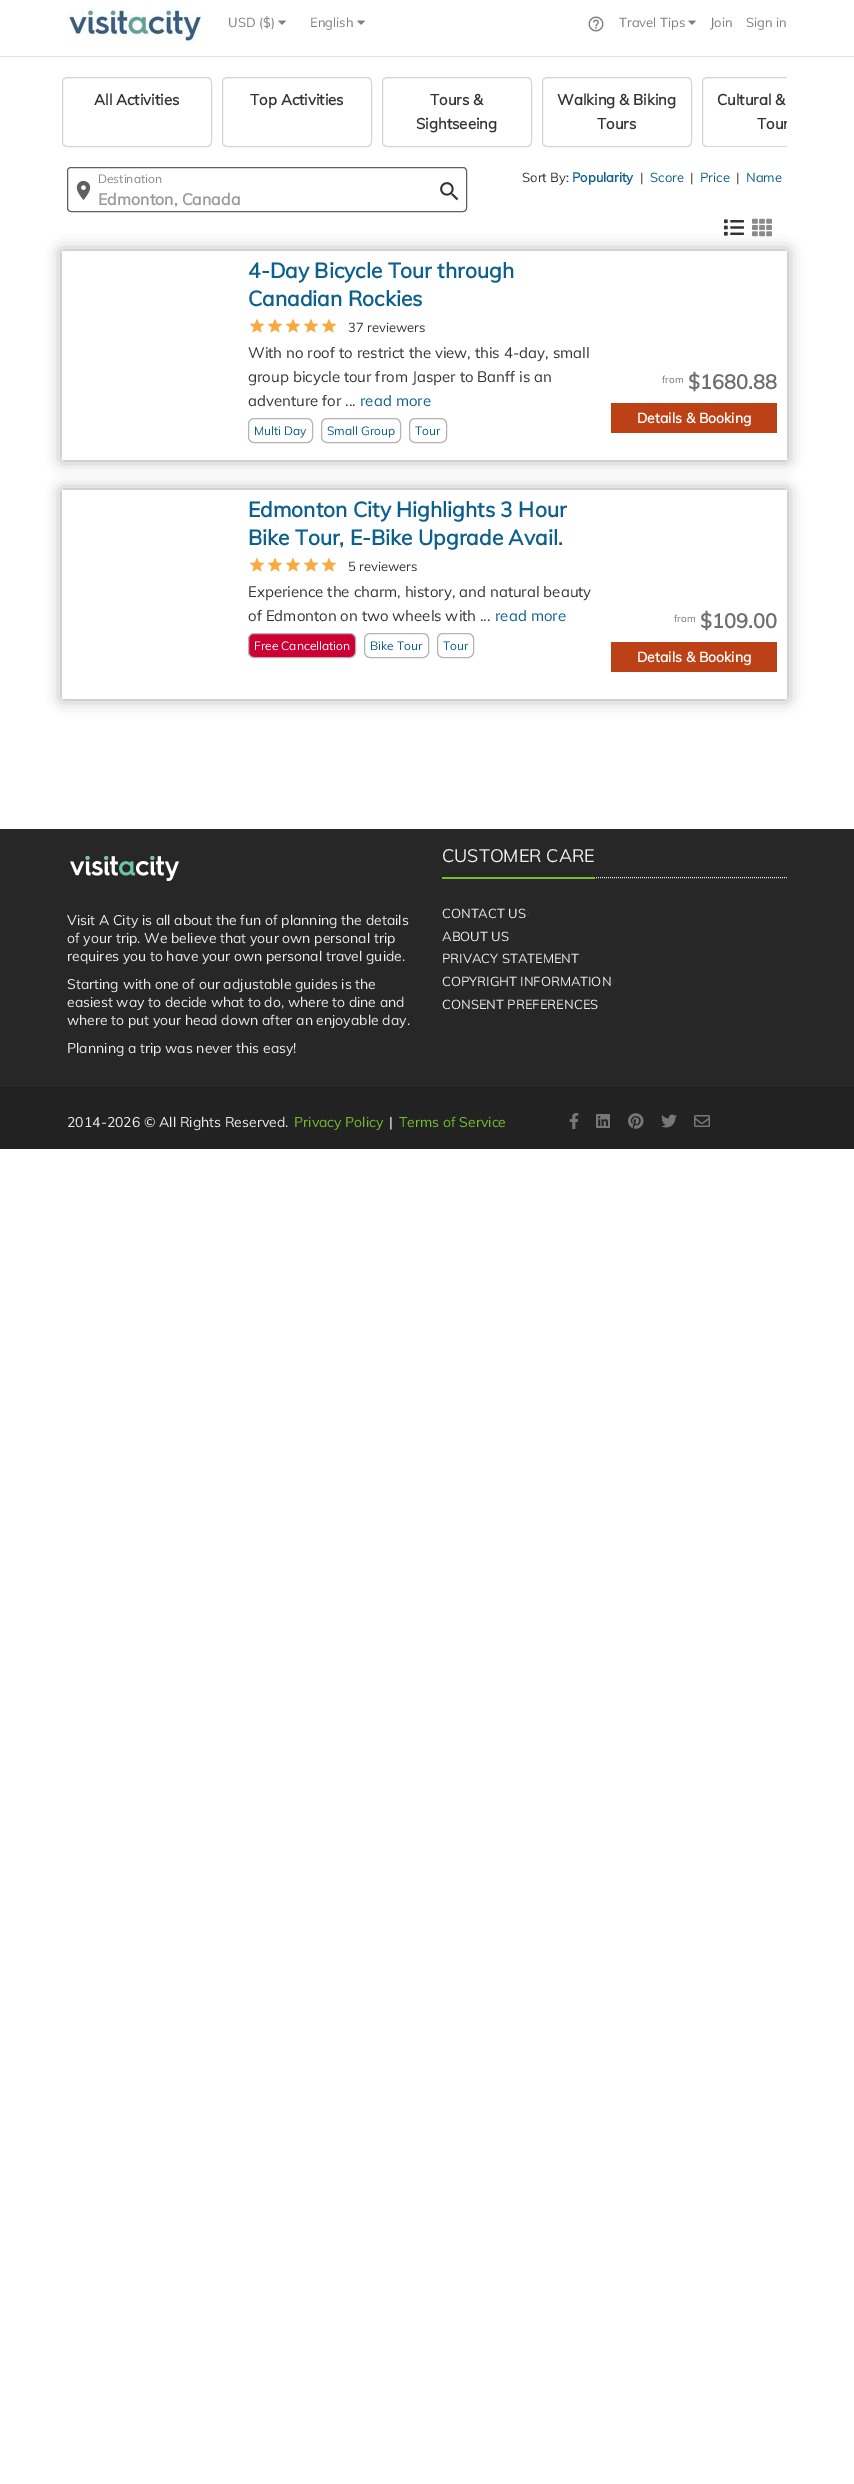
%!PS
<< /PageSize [854 2484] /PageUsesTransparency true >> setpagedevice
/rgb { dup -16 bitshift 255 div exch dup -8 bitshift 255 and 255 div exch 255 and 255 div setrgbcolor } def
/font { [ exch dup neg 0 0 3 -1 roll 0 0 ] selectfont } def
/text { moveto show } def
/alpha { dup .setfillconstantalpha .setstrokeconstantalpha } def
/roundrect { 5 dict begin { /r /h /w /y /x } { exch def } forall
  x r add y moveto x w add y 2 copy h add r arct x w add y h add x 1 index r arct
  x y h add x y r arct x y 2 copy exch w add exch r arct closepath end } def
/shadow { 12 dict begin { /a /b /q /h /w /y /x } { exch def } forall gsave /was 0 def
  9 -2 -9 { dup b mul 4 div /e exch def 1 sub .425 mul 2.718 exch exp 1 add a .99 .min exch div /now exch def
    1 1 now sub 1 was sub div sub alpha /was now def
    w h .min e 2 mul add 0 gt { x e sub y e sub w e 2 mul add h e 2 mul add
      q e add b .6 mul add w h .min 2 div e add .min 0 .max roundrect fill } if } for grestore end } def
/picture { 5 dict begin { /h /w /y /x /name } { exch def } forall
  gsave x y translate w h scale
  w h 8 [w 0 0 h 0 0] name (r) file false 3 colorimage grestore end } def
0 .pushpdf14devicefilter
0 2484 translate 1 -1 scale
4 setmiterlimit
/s1 { /Muli-Regular 13 font 16#7C8082 rgb } def
/s2 { /Muli-Bold 15 font 16#333333 rgb } def
/s3 { /Muli-Regular 12 font 16#8C8787 rgb } def
/s4 { /Muli-Bold 16 font 16#999999 rgb } def
/s5 { /Muli-Regular 13 font 16#333333 rgb } def
/s6 { /Muli-Bold 13 font 16#0C608E rgb } def
/s7 { /Muli-Regular 13 font 16#0C608E rgb } def
/s8 { /Muli-Bold 21 font 16#0C608E rgb } def
/s9 { /Muli-Regular 15 font 16#333333 rgb } def
/s10 { /Muli-Regular 15 font 16#0C608E rgb } def
/s11 { /Muli-Regular 12 font 16#0C608E rgb } def
/s12 { /Muli-Regular 10 font 16#6D7072 rgb } def
/s13 { /Muli-Bold 20 font 16#6D7072 rgb } def
/s14 { /Muli-Bold 14 font 16#FFFFFF rgb } def
/s15 { /Muli-Regular 12 font 16#FFFFFF rgb } def
/s16 { /Muli-Regular 14 font 16#EEEEEE rgb } def
/s17 { /Muli-Regular 18 font 16#EEEEEE rgb } def
/s18 { /Muli-Regular 13 font 16#EEEEEE rgb } def
/s19 { /Muli-Regular 14 font 16#72C02C rgb } def
16#FFFFFF rgb
0 0 854 2484 rectfill
(pic1.raw) 67 8 136 36 picture
s1
(USD \($\)) 228 27 text
(pic2.raw) 278 20 8 5 picture
(English) 310 27 text
(pic2.raw) 357 20 8 5 picture
(pic3.raw) 588 16 16 16 picture
(Travel Tips) 619 27 text
(pic2.raw) 688 20 8 5 picture
(Join) 710 27 text
(Sign in) 746 27 text
16#E0E1E5 rgb
0 56 854 1 rectfill
16#D7D4D2 rgb
62.5 77.5 149 69 4.5 roundrect stroke
s2
(All Activities) 94 105 text
16#D7D4D2 rgb
222.5 77.5 149 69 4.5 roundrect stroke
s2
(Top Activities) 250 105 text
16#D7D4D2 rgb
382.5 77.5 149 69 4.5 roundrect stroke
s2
(Tours &) 430 105 text
(Sightseeing) 416 129 text
16#D7D4D2 rgb
542.5 77.5 149 69 4.5 roundrect stroke
s2
(Walking & Biking) 557 105 text
(Tours) 597 129 text
gsave
52 57 735 90 rectclip
16#D7D4D2 rgb
702.5 77.5 149 69 4.5 roundrect stroke
grestore
(Cultural &) 717 105 text
gsave
52 57 735 90 rectclip
(Tour) 757 129 text
grestore
16#606060 rgb
67.5 167.5 399 44 3.5 roundrect stroke
s3
(Destination) 98 183 text
(pic4.raw) 76 180 15 20 picture
s4
(Edmonton, Canada) 98 205 text
(pic5.raw) 440 182 19 19 picture
s5
(Sort By:) 522 182 text
s6
(Popularity) 572 182 text
s5
(|) 640 182 text
s7
(Score) 650 182 text
s5
(|) 690 182 text
s7
(Price) 700 182 text
s5
(|) 736 182 text
s7
(Name) 746 182 text
(pic6.raw) 724 219 20 17 picture
(pic7.raw) 752 218 20 19 picture
gsave
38 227 moveto 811 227 lineto 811 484 lineto 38 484 lineto closepath 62 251 moveto 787 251 lineto 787 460 lineto 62 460 lineto closepath eoclip newpath
16#000000 rgb
62 251 725 209 0 7.5 0.35 shadow
grestore
s8
(4-Day Bicycle Tour through) 248 278 text
(Canadian Rockies) 248 306 text
(pic8.raw) 249 318 16 15 picture
(pic8.raw) 267 318 16 15 picture
(pic8.raw) 285 318 16 15 picture
(pic8.raw) 303 318 16 15 picture
(pic8.raw) 321 318 16 15 picture
s5
(37 reviewers) 348 332 text
s9
(With no roof to restrict the view, this 4-day, small) 248 358 text
(group bicycle tour from Jasper to Banff is an) 248 382 text
(adventure for ...) 248 406 text
s10
(read more) 360 406 text
16#B4B4B4 rgb
248.5 418.5 64 24 5.5 roundrect stroke
s11
(Multi Day) 254 435 text
16#B4B4B4 rgb
321.5 418.5 79 24 5.5 roundrect stroke
s11
(Small Group) 327 435 text
16#B4B4B4 rgb
409.5 418.5 37 24 5.5 roundrect stroke
s11
(Tour) 415 435 text
s12
(from) 662 383 text
s13
($1680.88) 688 389 text
16#BD4116 rgb
611 403 166 30 rectfill
s14
(Details & Booking) 637 423 text
gsave
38 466 moveto 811 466 lineto 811 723 lineto 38 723 lineto closepath 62 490 moveto 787 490 lineto 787 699 lineto 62 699 lineto closepath eoclip newpath
16#000000 rgb
62 490 725 209 0 7.5 0.35 shadow
grestore
s8
(Edmonton City Highlights 3 Hour) 248 517 text
(Bike Tour, E-Bike Upgrade Avail.) 248 545 text
(pic8.raw) 249 557 16 15 picture
(pic8.raw) 267 557 16 15 picture
(pic8.raw) 285 557 16 15 picture
(pic8.raw) 303 557 16 15 picture
(pic8.raw) 321 557 16 15 picture
s5
(5 reviewers) 348 571 text
s9
(Experience the charm, history, and natural beauty) 248 597 text
(of Edmonton on two wheels with ...) 248 621 text
s10
(read more) 495 621 text
16#CC0033 rgb
248.5 633.5 107 24 5.5 roundrect gsave fill grestore
16#B4B4B4 rgb
stroke
s15
(Free Cancellation) 254 650 text
16#B4B4B4 rgb
364.5 633.5 64 24 5.5 roundrect stroke
s11
(Bike Tour) 370 650 text
16#B4B4B4 rgb
437.5 633.5 36 24 5.5 roundrect stroke
s11
(Tour) 443 650 text
s12
(from) 674 622 text
s13
($109.00) 700 628 text
16#BD4116 rgb
611 642 166 30 rectfill
s14
(Details & Booking) 637 662 text
16#272727 rgb
0 829 854 258 rectfill
(pic9.raw) 70 856 109 25 picture
s16
(Visit A City is all about the fun of planning the details) 67 925 text
(of your trip. We believe that your own personal trip) 67 943 text
(requires you to have your own personal travel guide.) 67 961 text
(Starting with one of our adjustable guides is the) 67 989 text
(easiest way to decide what to do, where to dine and) 67 1007 text
(where to put your head down after an enjoyable day.) 67 1025 text
(Planning a trip was never this easy!) 67 1053 text
16#E4E9F0 rgb
[1 1] 0 setdash
442 877.5 moveto 787 877.5 lineto stroke
16#72C02C rgb
442 877 153 2 rectfill
s17
(CUSTOMER CARE) 442 862 text
s18
(CONTACT US) 442 918 text
(pic10.raw) 527 910 3 6 picture
(ABOUT US) 442 941 text
(pic10.raw) 510 933 3 6 picture
(PRIVACY STATEMENT) 442 963 text
(pic10.raw) 580 955 3 6 picture
(COPYRIGHT INFORMATION) 442 986 text
(pic10.raw) 612 978 3 6 picture
(CONSENT PREFERENCES) 442 1009 text
16#222222 rgb
0 1087 854 62 rectfill
s16
(2014-2026 © All Rights Reserved.) 67 1127 text
s19
(Privacy Policy) 294 1127 text
s16
(|) 389 1127 text
s19
(Terms of Service) 399 1127 text
(pic11.raw) 569 1113 10 16 picture
(pic12.raw) 596 1114 14 14 picture
(pic13.raw) 628 1113 16 16 picture
(pic14.raw) 661 1114 16 14 picture
(pic15.raw) 694 1115 16 12 picture
.poppdf14devicefilter showpage
